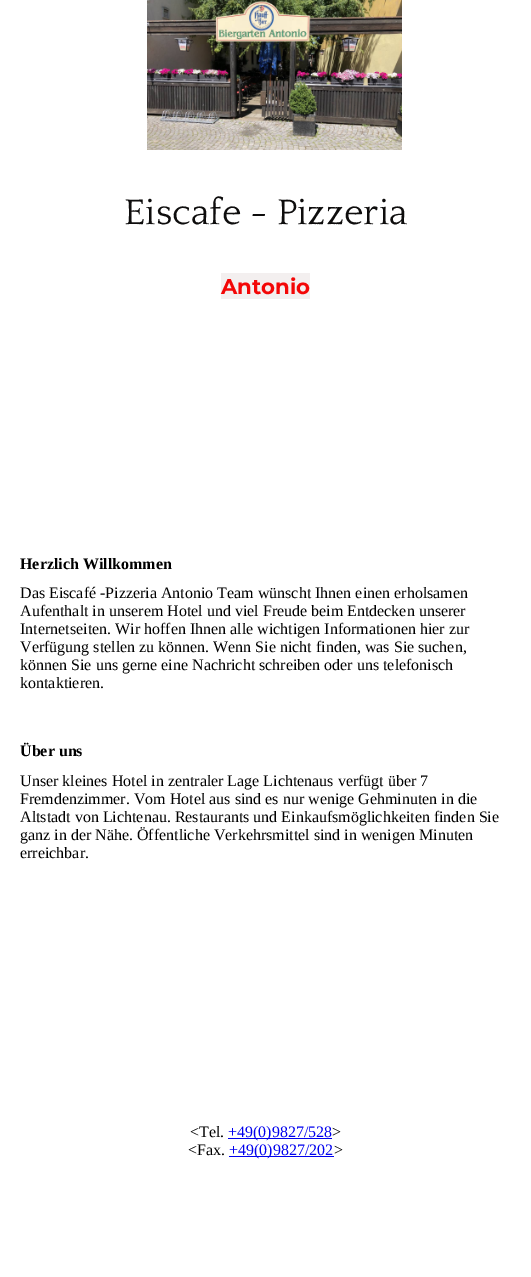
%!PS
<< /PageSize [531 1277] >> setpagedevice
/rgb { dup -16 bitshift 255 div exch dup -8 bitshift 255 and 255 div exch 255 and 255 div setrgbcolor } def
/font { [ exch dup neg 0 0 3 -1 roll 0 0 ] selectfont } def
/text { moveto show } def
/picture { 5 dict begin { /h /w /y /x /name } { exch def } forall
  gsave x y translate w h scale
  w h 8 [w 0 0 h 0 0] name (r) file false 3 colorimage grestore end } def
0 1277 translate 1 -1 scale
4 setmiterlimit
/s1 { /Quattrocento-Regular 37.25 font 16#0E0D0D rgb } def
/s2 { /Montserrat-Bold 21.25 font 16#F30606 rgb } def
/s3 { /LiberationSerif-Bold 16 font 16#000000 rgb } def
/s4 { /LiberationSerif-Regular 16 font 16#000000 rgb } def
/s5 { /LiberationSerif-Regular 16 font 16#0000EE rgb } def
16#FFFFFF rgb
0 0 531 1277 rectfill
(pic1.raw) 147 0 255 150 picture
s1
(Eiscafe - Pizzeria) 124 224 text
16#F3EFEF rgb
221 273 89 26 rectfill
s2
(Antonio) 221 294 text
s3
(Herzlich Willkommen) 20 569 text
s4
(Das Eiscafé -Pizzeria Antonio Team wünscht Ihnen einen erholsamen) 20 598 text
(Aufenthalt in unserem Hotel und viel Freude beim Entdecken unserer) 20 616 text
(Internetseiten. Wir hoffen Ihnen alle wichtigen Informationen hier zur) 20 634 text
(Verfügung stellen zu können. Wenn Sie nicht finden, was Sie suchen,) 20 652 text
(können Sie uns gerne eine Nachricht schreiben oder uns telefonisch) 20 670 text
(kontaktieren.) 20 688 text
s3
(Über uns) 20 756 text
s4
(Unser kleines Hotel in zentraler Lage Lichtenaus verfügt über 7) 20 786 text
(Fremdenzimmer. Vom Hotel aus sind es nur wenige Gehminuten in die) 20 804 text
(Altstadt von Lichtenau. Restaurants und Einkaufsmöglichkeiten finden Sie) 20 822 text
(ganz in der Nähe. Öffentliche Verkehrsmittel sind in wenigen Minuten) 20 840 text
(erreichbar.) 20 858 text
(<Tel.) 190 1137 text
16#0000EE rgb
228 1138 104 1 rectfill
(+49\(0\)9827/528) 228 1137 text
s4
(>) 332 1137 text
(<Fax.) 188 1155 text
16#0000EE rgb
229 1156 105 1 rectfill
(+49\(0\)9827/202) 229 1155 text
s4
(>) 334 1155 text
showpage
